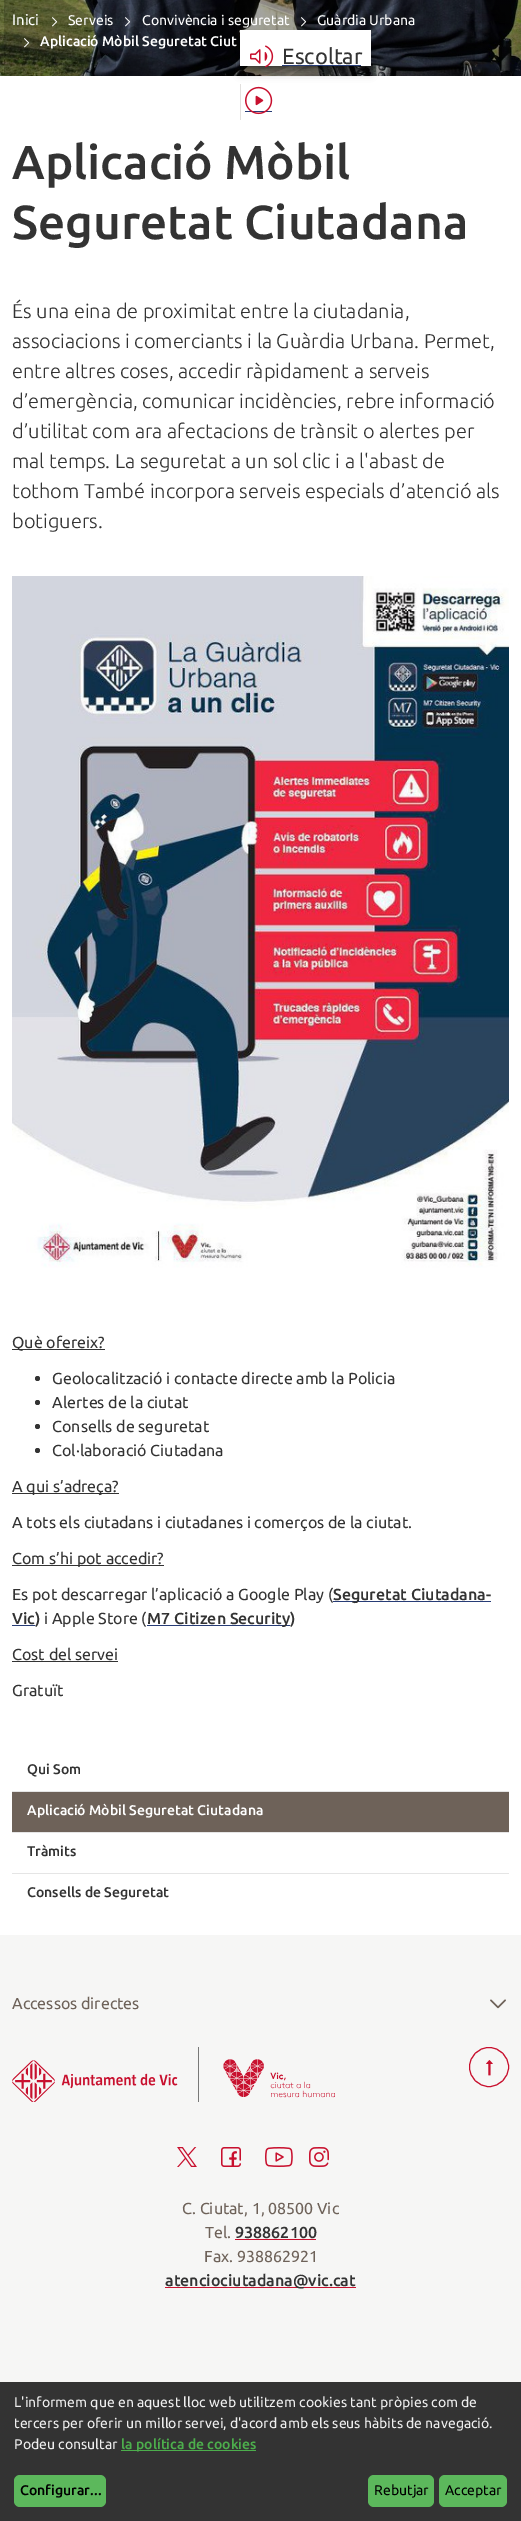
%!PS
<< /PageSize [521 2521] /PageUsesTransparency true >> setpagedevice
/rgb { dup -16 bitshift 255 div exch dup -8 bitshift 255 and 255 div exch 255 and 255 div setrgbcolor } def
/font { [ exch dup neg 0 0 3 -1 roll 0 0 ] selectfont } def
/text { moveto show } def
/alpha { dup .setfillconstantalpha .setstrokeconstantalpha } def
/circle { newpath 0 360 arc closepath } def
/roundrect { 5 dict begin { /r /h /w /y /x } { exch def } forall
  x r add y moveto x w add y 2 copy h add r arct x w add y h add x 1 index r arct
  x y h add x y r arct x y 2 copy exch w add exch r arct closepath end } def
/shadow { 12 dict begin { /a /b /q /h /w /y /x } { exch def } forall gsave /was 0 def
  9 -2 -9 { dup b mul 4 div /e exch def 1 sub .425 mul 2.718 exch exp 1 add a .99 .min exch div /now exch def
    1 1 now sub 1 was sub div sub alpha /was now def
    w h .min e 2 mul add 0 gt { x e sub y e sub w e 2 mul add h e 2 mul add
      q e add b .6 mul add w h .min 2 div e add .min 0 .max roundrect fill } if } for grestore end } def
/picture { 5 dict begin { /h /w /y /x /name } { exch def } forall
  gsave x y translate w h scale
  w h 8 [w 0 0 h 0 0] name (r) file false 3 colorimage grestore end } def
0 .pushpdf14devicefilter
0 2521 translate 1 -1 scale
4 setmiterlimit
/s1 { /Ubuntu-Regular 15 font 16#FFFFFF rgb } def
/s2 { /Ubuntu-Regular 14 font 16#FFFFFF rgb } def
/s3 { /Ubuntu-Medium 14 font 16#FFFFFF rgb } def
/s4 { /Ubuntu-Regular 22 font 16#333333 rgb } def
/s5 { /Ubuntu-Medium 47.75 font 16#333333 rgb } def
/s6 { /Ubuntu-Light 20 font 16#333333 rgb } def
/s7 { /Ubuntu-Regular 16 font 16#333333 rgb } def
/s8 { /Ubuntu-Medium 16 font 16#333333 rgb } def
/s9 { /Ubuntu-Medium 14 font 16#333333 rgb } def
/s10 { /Ubuntu-Regular 16 font 16#6E6259 rgb } def
/s11 { /Ubuntu-Regular 14 font 16#EEEEEE rgb } def
/s12 { /Ubuntu-Medium 14 font 16#4CAE4C rgb } def
/s13 { /Ubuntu-Medium 14 font 16#000000 rgb } def
/s14 { /Ubuntu-Regular 14 font 16#000000 rgb } def
16#FFFFFF rgb
0 0 521 2521 rectfill
(pic1.raw) 0 0 521 76 picture
s1
(Inici) 12 25 text
(pic2.raw) 52 17 6 10 picture
s2
(Serveis) 68 25 text
(pic3.raw) 125 17 6 10 picture
(Convivència i seguretat) 142 25 text
(pic4.raw) 301 17 6 10 picture
(Guàrdia Urbana) 317 25 text
(pic5.raw) 24 38 6 10 picture
s3
(Aplicació Mòbil Seguretat Ciut) 40 46 text
16#000000 rgb
240 38 131 36 0 4 0.2 shadow
240 34 131 36 0 2 0.16 shadow
240 32 131 36 0 1 0.12 shadow
240 31 131 36 0 0.5 0.08 shadow
16#FFFFFF rgb
240 30 131 36 rectfill
(pic6.raw) 250 45 24 23 picture
s4
(Escoltar) 282 64 text
16#273C76 rgb
282 65 79 1 rectfill
16#E2E0DE rgb
240 84 1 36 rectfill
16#273C76 rgb
245 111 27 1 rectfill
(pic7.raw) 245 86 28 29 picture
s5
(Aplicació Mòbil) 12 179 text
(Seguretat Ciutadana) 12 239 text
s6
(És una eina de proximitat entre la ciutadania,) 12 318 text
(associacions i comerciants i la Guàrdia Urbana. Permet,) 12 348 text
(entre altres coses, accedir ràpidament a serveis) 12 378 text
(d’emergència, comunicar incidències, rebre informació) 12 408 text
(d’utilitat com ara afectacions de trànsit o alertes per) 12 438 text
(mal temps. La seguretat a un sol clic i a l'abast de) 12 468 text
(tothom També incorpora serveis especials d’atenció als) 12 498 text
(botiguers.) 12 528 text
(pic8.raw) 12 576 497 692 picture
12 1349 93 1 rectfill
s7
(Què ofereix?) 12 1348 text
37.5 1378.5 2.5 circle fill
(Geolocalització i contacte directe amb la Policia) 52 1384 text
37.5 1402.5 2.5 circle fill
(Alertes de la ciutat) 52 1408 text
37.5 1426.5 2.5 circle fill
(Consells de seguretat) 52 1432 text
37.5 1450.5 2.5 circle fill
(Col·laboració Ciutadana) 52 1456 text
12 1493 107 1 rectfill
(A qui s’adreça?) 12 1492 text
(A tots els ciutadans i ciutadanes i comerços de la ciutat.) 12 1528 text
12 1565 152 1 rectfill
(Com s’hi pot accedir?) 12 1564 text
(Es pot descarregar l’aplicació a Google Play \() 12 1600 text
16#273C76 rgb
333 1601 158 1 rectfill
s8
(Seguretat Ciutadana-) 333 1600 text
16#273C76 rgb
12 1625 23 1 rectfill
s8
(Vic\)) 12 1624 text
s7
(i Apple Store \() 44 1624 text
16#273C76 rgb
147 1625 143 1 rectfill
s8
(M7 Citizen Security\)) 147 1624 text
s7
(Cost del servei) 12 1660 text
12 1661 106 1 rectfill
(Gratuït) 12 1696 text
s9
(Qui Som) 27 1774 text
16#6E6259 rgb
12 1792 497 40 rectfill
16#E5E5E5 rgb
12 1791 497 1 rectfill
s3
(Aplicació Mòbil Seguretat Ciutadana) 27 1815 text
16#E5E5E5 rgb
12 1832 497 1 rectfill
s9
(Tràmits) 27 1856 text
16#E5E5E5 rgb
12 1873 497 1 rectfill
s9
(Consells de Seguretat) 27 1897 text
16#F6F6F5 rgb
0 1935 521 447 rectfill
s10
(Accessos directes) 12 2009 text
(pic9.raw) 490 1999 16 10 picture
(pic10.raw) 12 2047 323 55 picture
16#C8102E rgb
489 2067 19.5 circle stroke
(pic11.raw) 486 2060 7 16 picture
(pic12.raw) 177 2147 20 20 picture
(pic13.raw) 221 2147 20 20 picture
(pic14.raw) 265 2147 28 20 picture
(pic15.raw) 309 2147 20 20 picture
s10
(C. Ciutat, 1, 08500 Vic) 182 2214 text
(Tel.) 205 2238 text
s8
(938862100) 235 2238 text
16#C8102E rgb
235 2239 81 1 rectfill
s10
(Fax. 938862921) 204 2262 text
16#C8102E rgb
165 2287 191 1 rectfill
s8
(atenciociutadana@vic.cat) 165 2286 text
0 2382 521 139 rectfill
s11
(L'informem que en aquest lloc web utilitzem cookies tant pròpies com de) 14 2407 text
(tercers per oferir un millor servei, d'acord amb els seus hàbits de navegació.) 14 2428 text
(Podeu consultar) 14 2449 text
16#4CAE4C rgb
121 2450 135 1 rectfill
s12
(la política de cookies) 121 2449 text
16#5CB85C rgb
14 2475 92 32 6 roundrect fill
s13
(Configurar...) 20 2495 text
16#5CB85C rgb
368 2475 66 32 6 roundrect fill
s14
(Rebutjar) 374 2495 text
16#5CB85C rgb
439 2475 68 32 6 roundrect fill
s14
(Acceptar) 445 2495 text
.poppdf14devicefilter showpage
